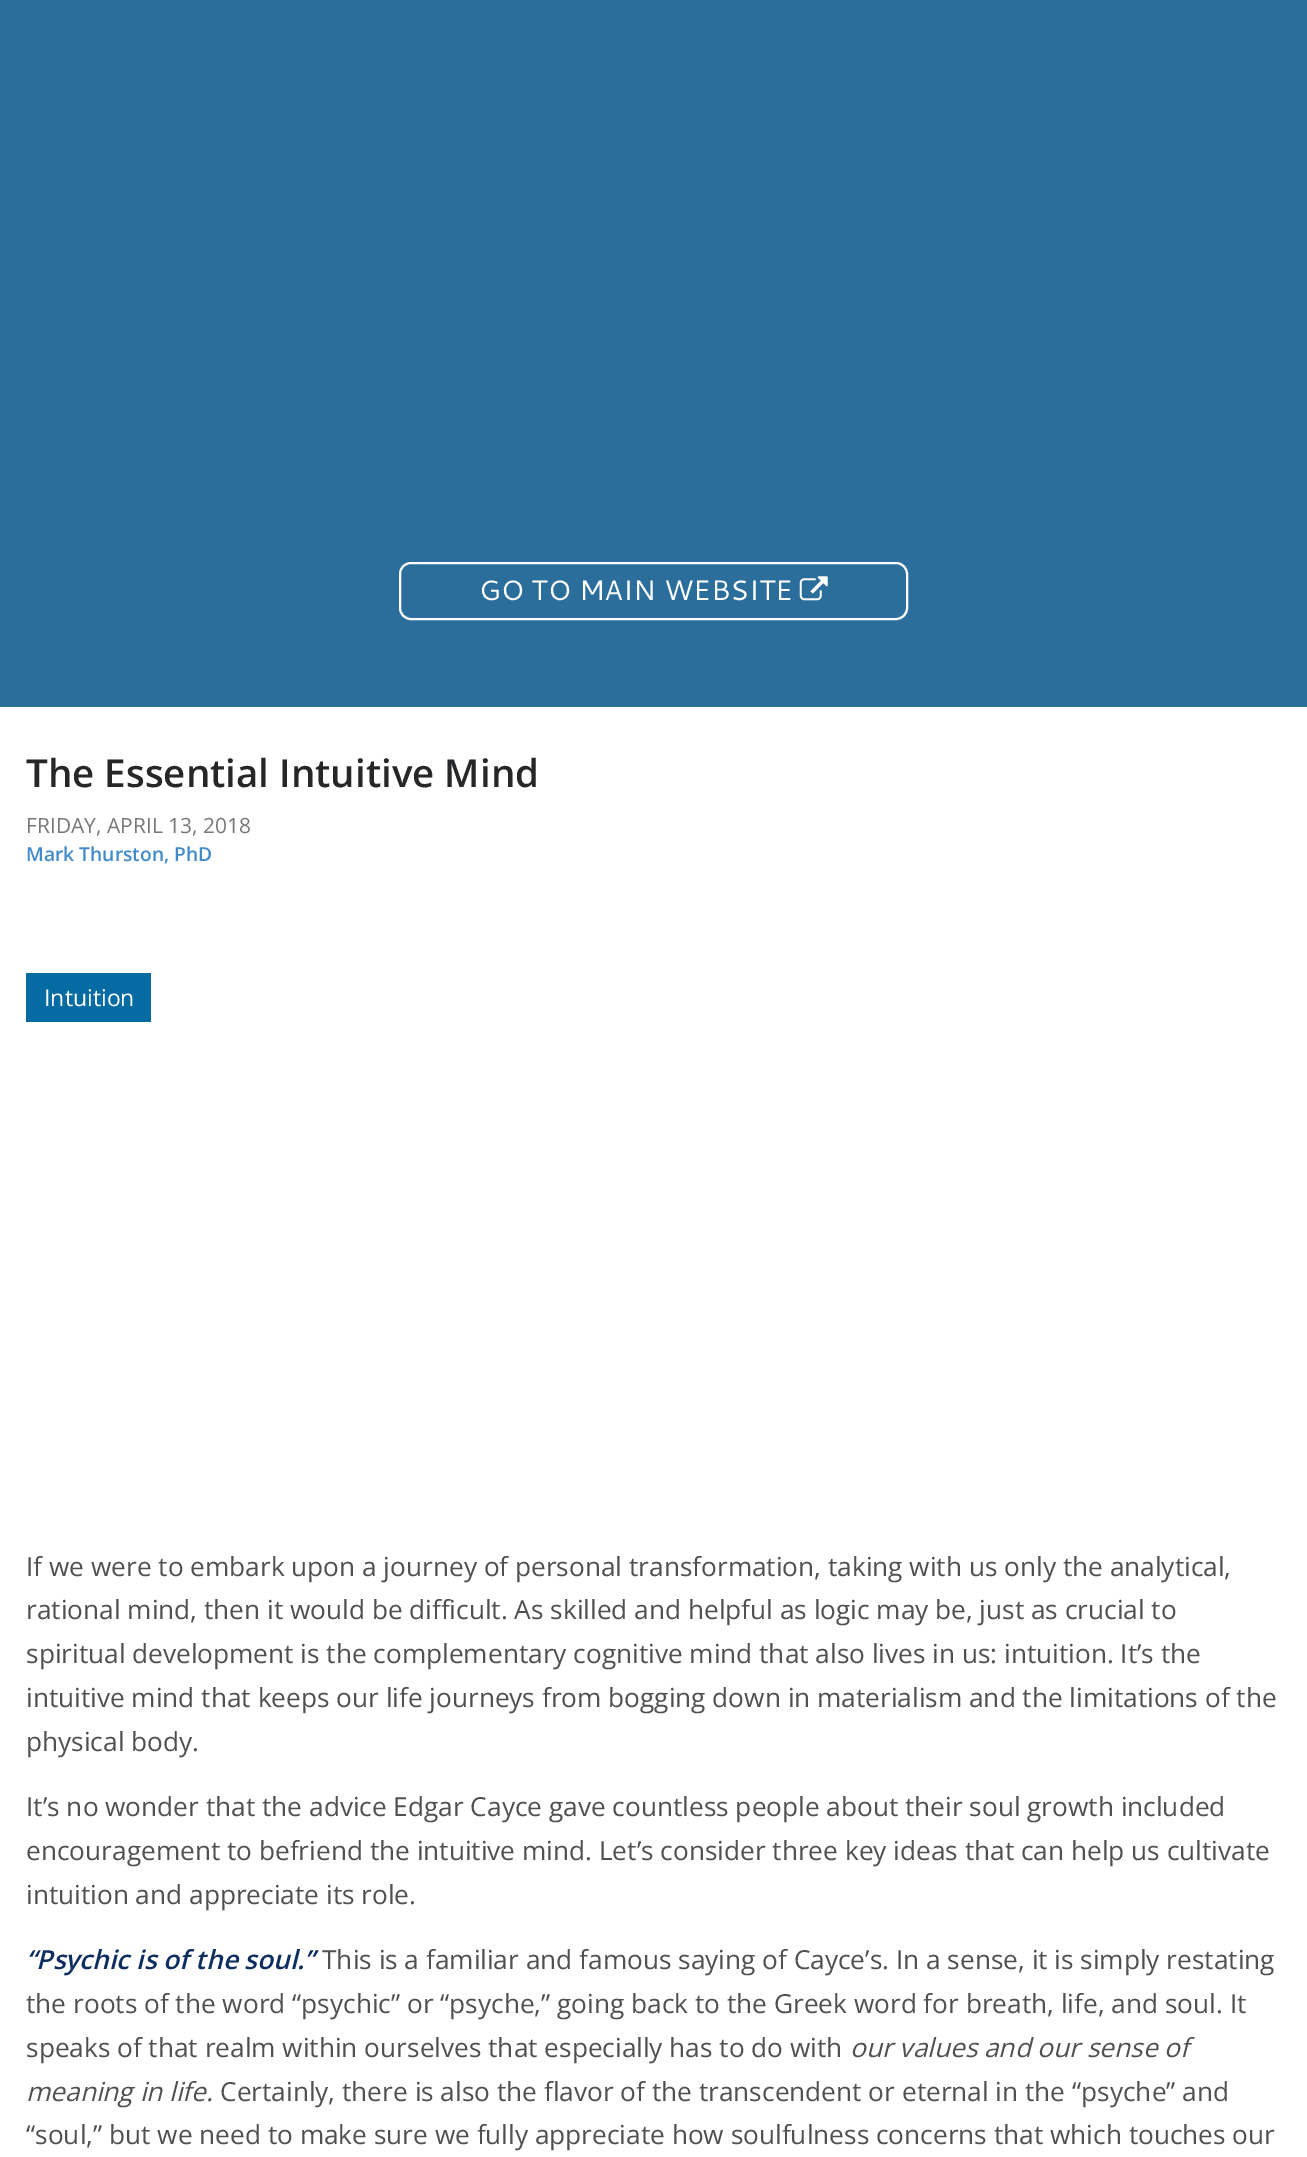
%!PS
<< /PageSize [1307 2157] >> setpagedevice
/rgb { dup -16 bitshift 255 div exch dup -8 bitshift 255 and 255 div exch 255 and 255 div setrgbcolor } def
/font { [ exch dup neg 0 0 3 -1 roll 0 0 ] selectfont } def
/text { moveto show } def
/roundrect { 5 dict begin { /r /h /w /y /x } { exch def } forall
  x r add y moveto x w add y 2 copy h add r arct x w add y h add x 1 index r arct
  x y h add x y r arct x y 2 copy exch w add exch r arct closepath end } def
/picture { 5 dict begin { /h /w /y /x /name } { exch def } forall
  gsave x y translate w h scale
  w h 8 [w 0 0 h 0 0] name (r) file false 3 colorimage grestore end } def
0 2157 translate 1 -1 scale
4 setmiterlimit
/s1 { /Cantarell-Regular 28 font 16#FFFFFF rgb } def
/s2 { /OpenSans-SemiBold 38.5 font 16#262729 rgb } def
/s3 { /OpenSans-Regular 21 font 16#7A7979 rgb } def
/s4 { /OpenSans-SemiBold 19.25 font 16#428BCA rgb } def
/s5 { /OpenSans-Regular 23 font 16#FFFFFF rgb } def
/s6 { /OpenSans-Regular 26.25 font 16#505051 rgb } def
/s7 { /OpenSans-SemiBoldItalic 26.25 font 16#0E2E60 rgb } def
/s8 { /OpenSans-Italic 26.25 font 16#505051 rgb } def
16#FFFFFF rgb
0 0 1307 2157 rectfill
16#2B6E9B rgb
0 0 1307 707 rectfill
16#FFFFFF rgb
2 setlinewidth
400 563 507 56 11 roundrect stroke
s1
(GO TO MAIN WEBSITE) 479 600 text
(pic1.raw) 799 576 29 25 picture
s2
(The Essential Intuitive Mind) 26 787 text
s3
(FRIDAY, APRIL 13, 2018) 26 833 text
s4
(Mark Thurston, PhD) 26 861 text
16#056BA3 rgb
26 973 125 49 rectfill
s5
(Intuition) 44 1006 text
s6
(If we were to embark upon a journey of personal transformation, taking with us only the analytical,) 26 1576 text
(rational mind, then it would be difficult. As skilled and helpful as logic may be, just as crucial to) 26 1619 text
(spiritual development is the complementary cognitive mind that also lives in us: intuition. It’s the) 26 1663 text
(intuitive mind that keeps our life journeys from bogging down in materialism and the limitations of the) 26 1707 text
(physical body.) 26 1751 text
(It’s no wonder that the advice Edgar Cayce gave countless people about their soul growth included) 26 1816 text
(encouragement to befriend the intuitive mind. Let’s consider three key ideas that can help us cultivate) 26 1860 text
(intuition and appreciate its role.) 26 1904 text
s7
(“Psychic is of the soul.”) 26 1969 text
s6
(This is a familiar and famous saying of Cayce’s. In a sense, it is simply restating) 322 1969 text
(the roots of the word “psychic” or “psyche,” going back to the Greek word for breath, life, and soul. It) 26 2013 text
(speaks of that realm within ourselves that especially has to do with) 26 2057 text
s8
(our values and our sense of) 850 2057 text
(meaning in life.) 26 2101 text
s6
(Certainly, there is also the flavor of the transcendent or eternal in the “psyche” and) 220 2101 text
(“soul,” but we need to make sure we fully appreciate how soulfulness concerns that which touches our) 26 2144 text
showpage
